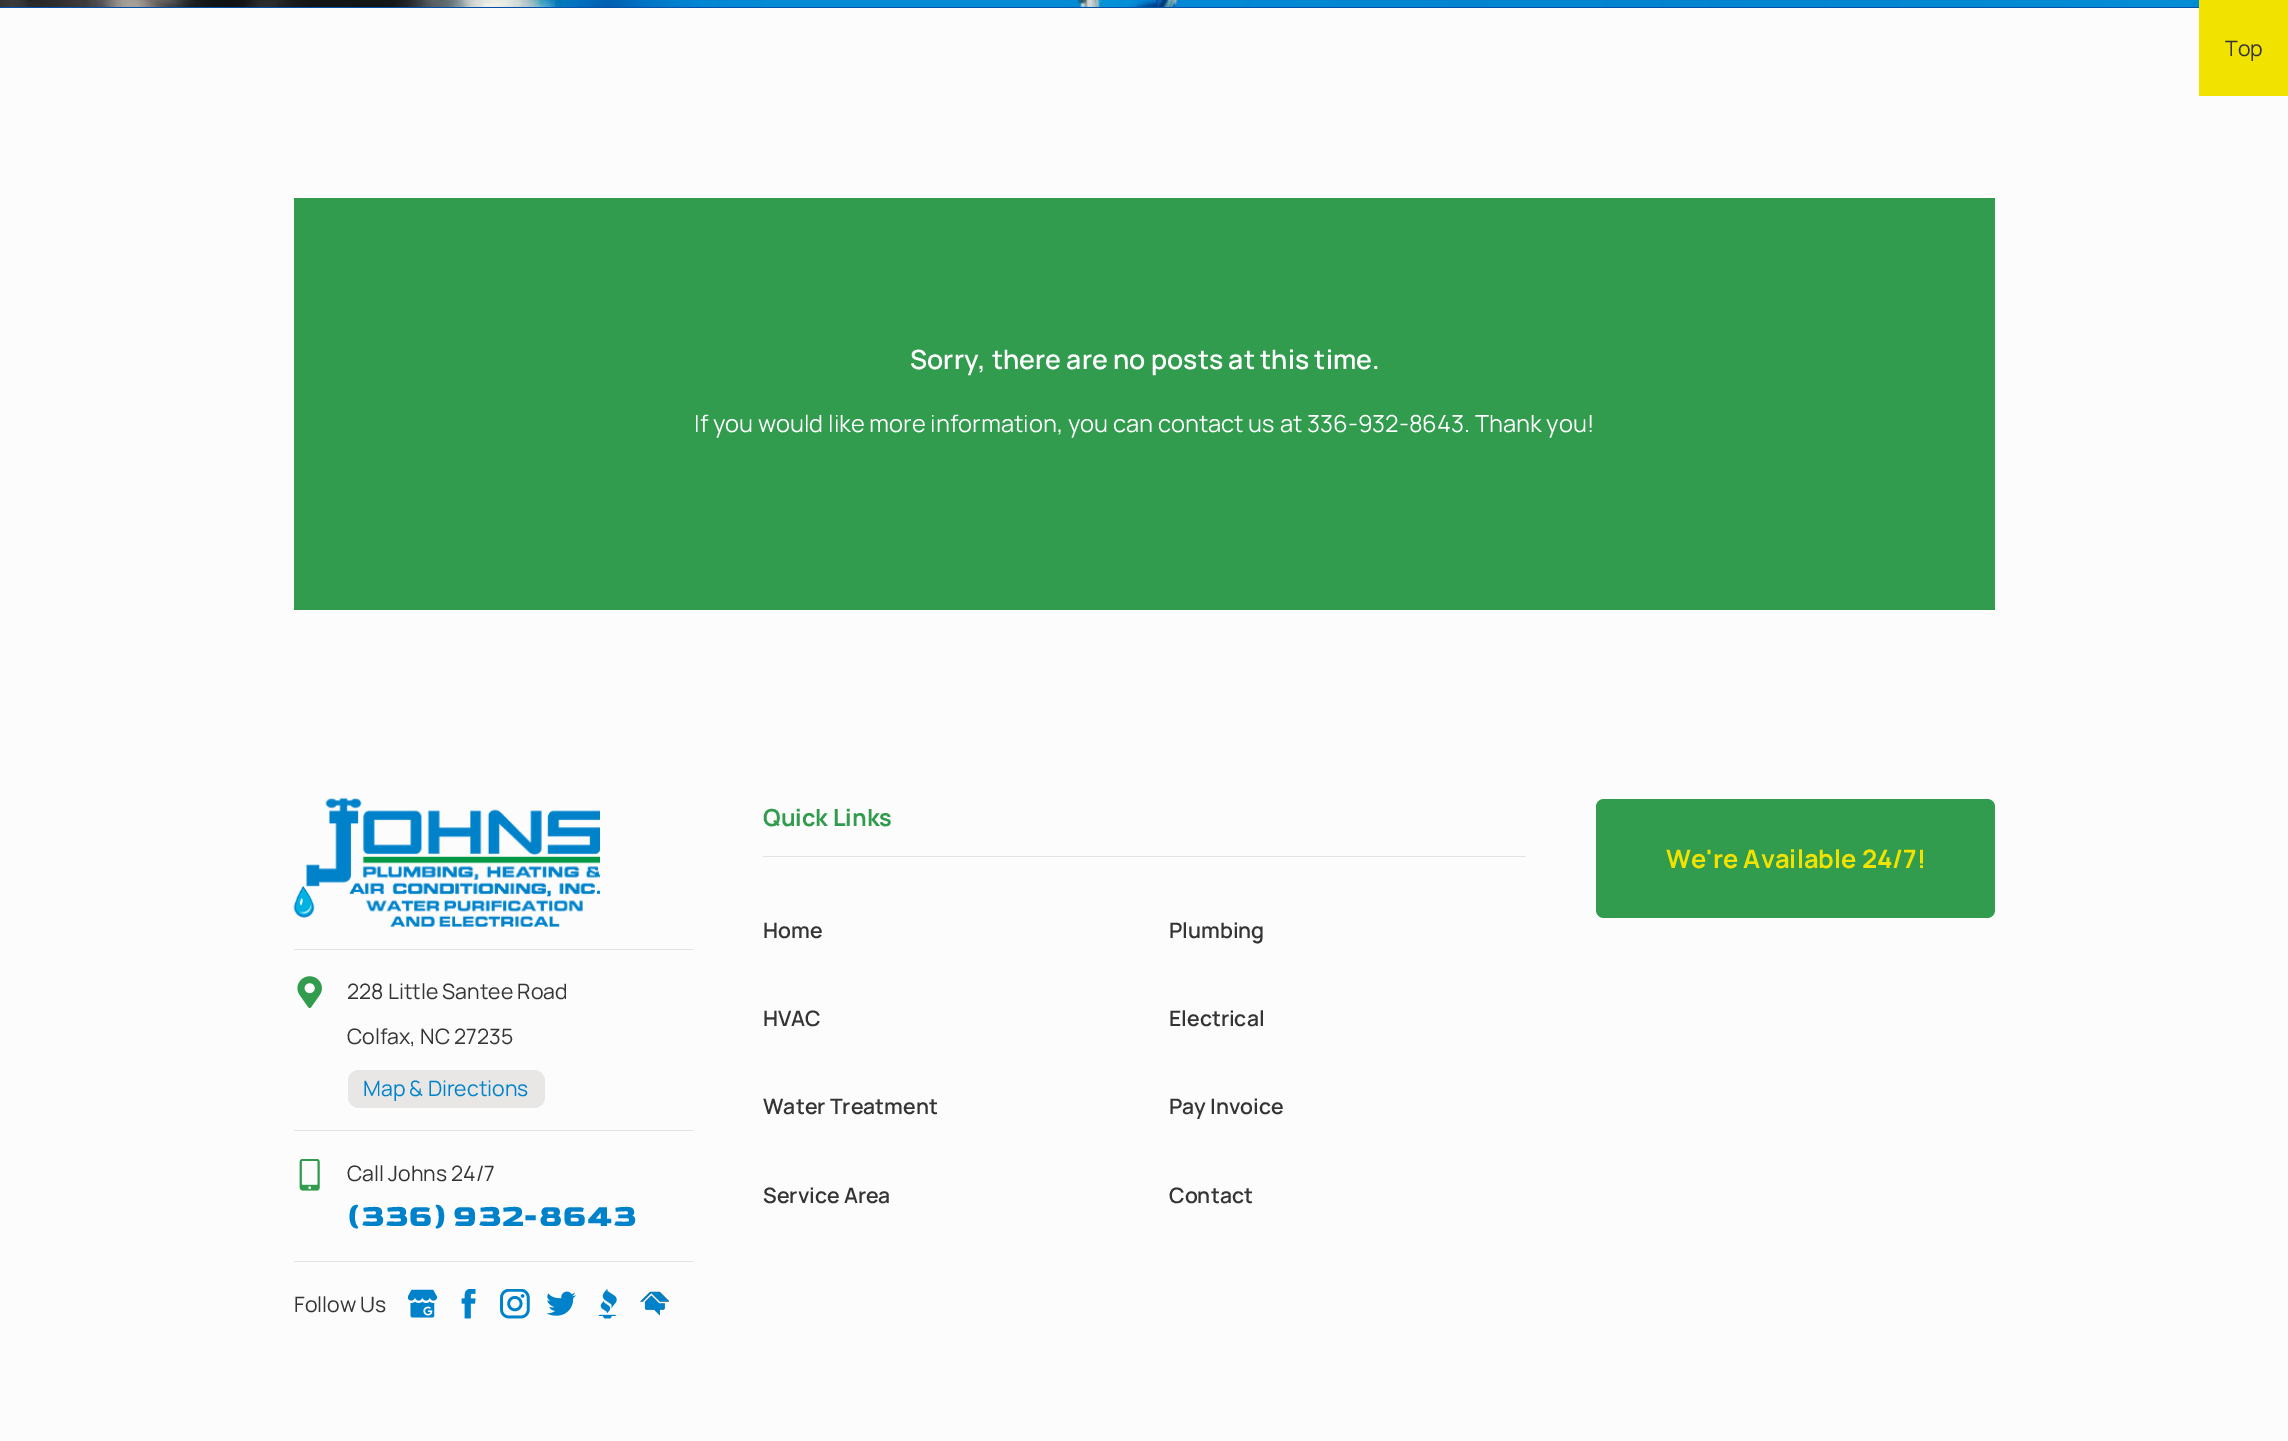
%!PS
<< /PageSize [2288 1441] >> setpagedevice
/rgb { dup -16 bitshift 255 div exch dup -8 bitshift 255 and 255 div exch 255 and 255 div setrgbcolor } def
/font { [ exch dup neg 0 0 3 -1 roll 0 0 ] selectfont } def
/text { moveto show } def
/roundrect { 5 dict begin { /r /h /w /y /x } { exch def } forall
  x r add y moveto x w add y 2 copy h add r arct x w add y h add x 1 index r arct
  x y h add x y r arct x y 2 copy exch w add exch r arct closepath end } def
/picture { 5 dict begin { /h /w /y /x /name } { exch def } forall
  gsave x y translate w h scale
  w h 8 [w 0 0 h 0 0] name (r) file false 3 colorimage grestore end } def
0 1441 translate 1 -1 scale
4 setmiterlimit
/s1 { /Manrope-Regular 21.25 font 16#343434 rgb } def
/s2 { /Manrope-SemiBold 26.6 font 16#FFFFFF rgb } def
/s3 { /Manrope-Regular 23.6 font 16#FFFFFF rgb } def
/s4 { /Manrope-Bold 23.5 font 16#319B4E rgb } def
/s5 { /Manrope-SemiBold 21.25 font 16#343434 rgb } def
/s6 { /Manrope-Bold 25.5 font 16#F2E200 rgb } def
/s7 { /Manrope-Regular 21.25 font 16#0082CB rgb } def
/s8 { /Goldman-Bold 32 font 16#0082CB rgb } def
16#0050AC rgb
0 0 2288 1441 rectfill
16#FCFCFC rgb
0 8 2288 1433 rectfill
16#F2E200 rgb
2199 0 89 96 rectfill
s1
(Top) 2225 56 text
(pic1.raw) 0 0 2199 7 picture
16#319B4E rgb
294 198 1701 412 rectfill
s2
(Sorry, there are no posts at this time.) 910 369 text
s3
(If you would like more information, you can contact us at 336-932-8643. Thank you!) 694 432 text
16#E3E3E3 rgb
763 856 763 1 rectfill
s4
(Quick Links) 763 826 text
s5
(Home) 763 938 text
(Plumbing) 1169 938 text
(HVAC) 763 1026 text
(Electrical) 1169 1026 text
(Water Treatment) 763 1114 text
(Pay Invoice) 1169 1114 text
(Service Area) 763 1203 text
(Contact) 1169 1203 text
16#319B4E rgb
1596 799 399 119 8 roundrect fill
s6
(We're Available 24/7!) 1666 868 text
(pic2.raw) 293 798 307 129 picture
16#E3E3E3 rgb
294 949 399 1 rectfill
(pic3.raw) 297 976 25 33 picture
s1
(228 Little Santee Road) 347 999 text
(Colfax, NC 27235) 347 1044 text
16#E9E7E6 rgb
348 1070 197 38 11 roundrect fill
s7
(Map & Directions) 363 1096 text
16#E3E3E3 rgb
294 1130 399 1 rectfill
(pic4.raw) 299 1159 21 32 picture
s1
(Call Johns 24/7) 347 1181 text
s8
(\(336\) 932-8643) 347 1226 text
16#E3E3E3 rgb
294 1261 399 1 rectfill
s1
(Follow Us) 294 1312 text
(pic5.raw) 408 1289 30 29 picture
(pic6.raw) 461 1289 15 30 picture
(pic7.raw) 500 1289 30 30 picture
(pic8.raw) 546 1291 30 25 picture
(pic9.raw) 598 1289 19 30 picture
(pic10.raw) 640 1291 29 25 picture
showpage
